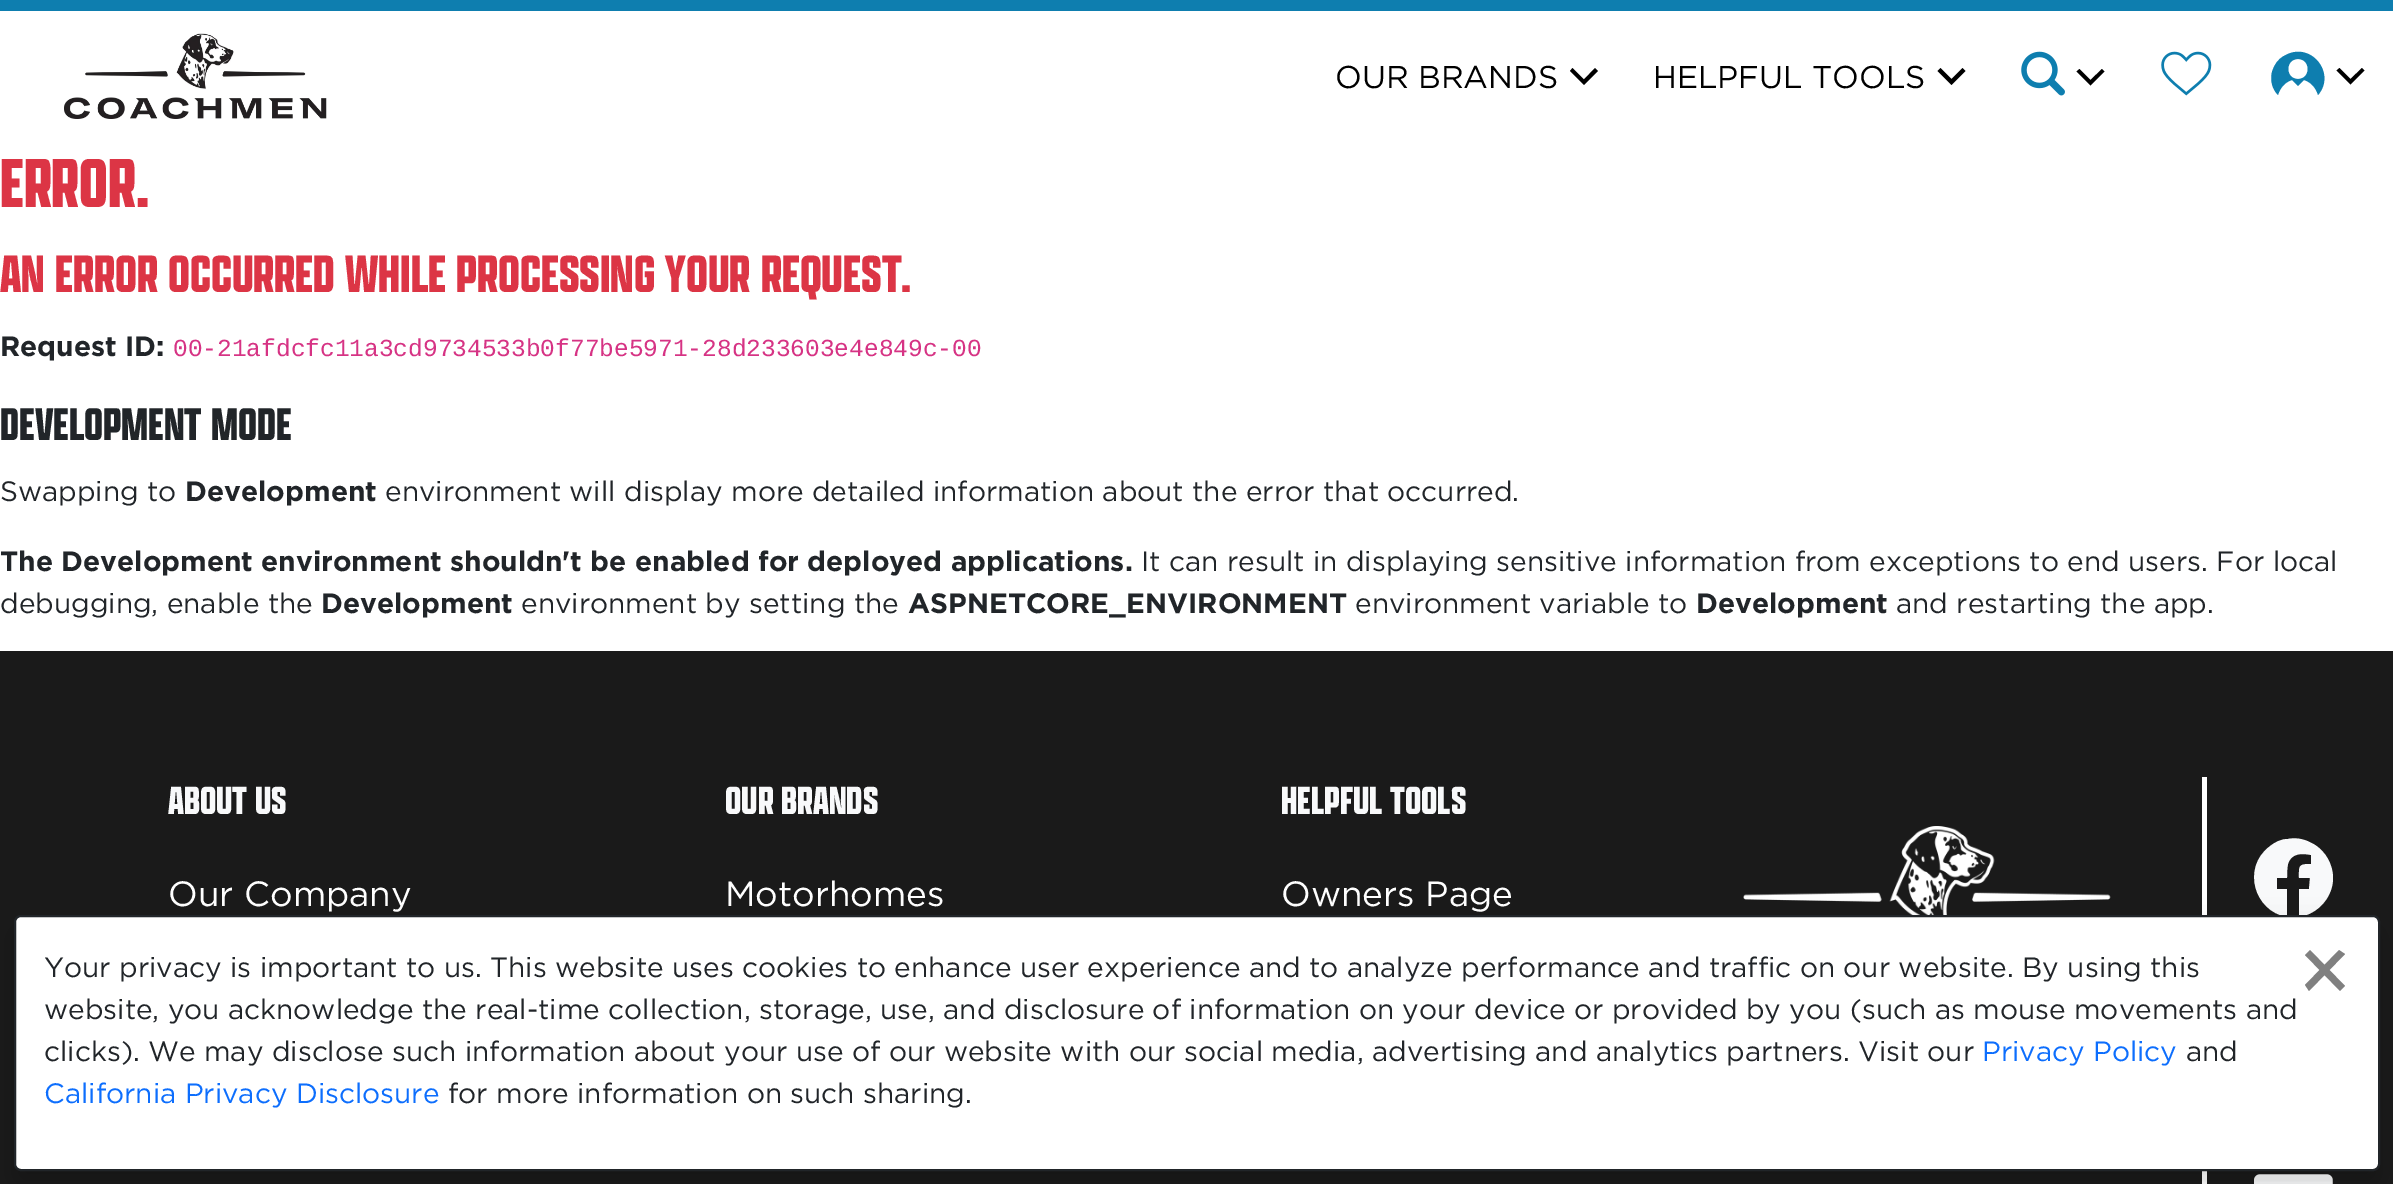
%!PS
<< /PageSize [2393 1184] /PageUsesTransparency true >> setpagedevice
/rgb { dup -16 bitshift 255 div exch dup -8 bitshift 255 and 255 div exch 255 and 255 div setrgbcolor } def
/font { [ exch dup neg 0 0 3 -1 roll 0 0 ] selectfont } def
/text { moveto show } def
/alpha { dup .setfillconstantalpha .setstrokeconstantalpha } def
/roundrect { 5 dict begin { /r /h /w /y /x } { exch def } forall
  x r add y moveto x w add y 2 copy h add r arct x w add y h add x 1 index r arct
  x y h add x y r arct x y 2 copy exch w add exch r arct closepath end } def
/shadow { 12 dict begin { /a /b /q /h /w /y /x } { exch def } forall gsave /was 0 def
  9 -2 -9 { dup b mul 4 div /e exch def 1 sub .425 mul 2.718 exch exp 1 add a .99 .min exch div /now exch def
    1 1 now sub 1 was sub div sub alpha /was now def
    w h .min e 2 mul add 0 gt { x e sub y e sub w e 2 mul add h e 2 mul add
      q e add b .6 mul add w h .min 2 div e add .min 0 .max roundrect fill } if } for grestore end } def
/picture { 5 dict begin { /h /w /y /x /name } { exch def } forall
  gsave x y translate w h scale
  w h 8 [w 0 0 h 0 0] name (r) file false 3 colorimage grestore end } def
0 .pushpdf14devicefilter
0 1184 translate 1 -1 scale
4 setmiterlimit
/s1 { /Gotham-Regular 31.5 font 16#000000 rgb } def
/s2 { /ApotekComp-Bold 74 font 16#DC3545 rgb } def
/s3 { /ApotekComp-Bold 56 font 16#DC3545 rgb } def
/s4 { /Gotham-Bold 28 font 16#212529 rgb } def
/s5 { /LiberationMono-Regular 24.5 font 16#D63384 rgb } def
/s6 { /ApotekComp-Bold 49 font 16#212529 rgb } def
/s7 { /Gotham-Regular 28 font 16#212529 rgb } def
/s8 { /ApotekComp-Bold 42 font 16#F8F9FA rgb } def
/s9 { /Gotham-Regular 35 font 16#FFFFFF rgb } def
/s10 { /Gotham-Regular 28 font 16#0D6EFD rgb } def
16#FFFFFF rgb
0 0 2393 1184 rectfill
16#0E7EAF rgb
0 0 2393 11 rectfill
(pic1.raw) 64 33 263 86 picture
s1
(OUR BRANDS) 1335 88 text
1584 79.5 moveto 1572.5 68 lineto 1570 71 lineto 1584 85 lineto 1598 71 lineto 1595 68 lineto closepath fill
(HELPFUL TOOLS) 1653 88 text
1951.5 79 moveto 1940.5 68 lineto 1937.5 71 lineto 1951.5 85 lineto 1965.5 71 lineto 1962.5 68 lineto closepath fill
(pic2.raw) 2021 51 44 45 picture
2090.5 80 moveto 2079.5 69 lineto 2076.5 71.5 lineto 2090.5 85.5 lineto 2104.5 71.5 lineto 2102 69 lineto closepath fill
(pic3.raw) 2161 51 51 45 picture
16#0E7EAF rgb
2292 80 moveto 2298 86 lineto 2304 80 lineto 2311 82 2316 88 2318 95 curveto 2337 73 2310 40 2284 56 curveto 2278 59 2274 65 2272 72 curveto 2270 80 2272 89 2278 95 curveto 2280 88 2285 82 2292 80 curveto closepath 2298 59 moveto 2311 59 2311 79 2298 79 curveto 2285 79 2285 59 2298 59 curveto closepath fill
16#000000 rgb
2350.5 79 moveto 2339.5 68 lineto 2336.5 70.5 lineto 2350.5 84.5 lineto 2364.5 70.5 lineto 2362 68 lineto closepath fill
s2
(ERROR.) 0 207 text
s3
(AN ERROR OCCURRED WHILE PROCESSING YOUR REQUEST.) 0 292 text
s4
(Request ID:) 0 356 text
s5
(00-21afdcfc11a3cd9734533b0f77be5971-28d233603e4e849c-00) 173 356 text
s6
(DEVELOPMENT MODE) 0 440 text
s7
(Swapping to) 0 501 text
s4
(Development) 185 501 text
s7
(environment will display more detailed information about the error that occurred.) 385 501 text
s4
(The Development environment shouldn't be enabled for deployed applications.) 0 571 text
s7
(It can result in displaying sensitive information from exceptions to end users. For local) 1141 571 text
(debugging, enable the) 0 613 text
s4
(Development) 321 613 text
s7
(environment by setting the) 521 613 text
s4
(ASPNETCORE_ENVIRONMENT) 908 613 text
s7
(environment variable to) 1355 613 text
s4
(Development) 1696 613 text
s7
(and restarting the app.) 1896 613 text
16#1A1A1A rgb
0 651 2393 533 rectfill
s8
(ABOUT US) 168 814 text
s9
(Our Company) 168 906 text
s8
(OUR BRANDS) 725 814 text
s9
(Motorhomes) 725 906 text
s8
(HELPFUL TOOLS) 1281 814 text
s9
(Owners Page) 1281 906 text
(pic4.raw) 1743 826 368 89 picture
2202 777 5 407 rectfill
16#F8F9FA rgb
2333 878 moveto 2333 865 2326 852 2315 845 curveto 2307 840 2298 837 2288 839 curveto 2281 839 2275 842 2269 847 curveto 2242 868 2254 911 2287 917 curveto 2287 889 lineto 2277 889 lineto 2277 878 lineto 2287 878 lineto 2287 873 2287 869 2288 864 curveto 2291 853 2302 853 2311 855 curveto 2311 864 lineto 2298 864 2299 866 2299 878 curveto 2310 878 lineto 2309 889 lineto 2299 889 lineto 2299 917 lineto 2318 914 2333 897 2333 878 curveto closepath fill
(pic5.raw) 2254 1174 79 10 picture
16#000000 rgb
14 929 2366 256 7 14 0.15 shadow
16#FFFFFF rgb
15 916 2364 254 6 roundrect gsave fill grestore
16#212529 rgb
2 setlinewidth
stroke
s7
(Your privacy is important to us. This website uses cookies to enhance user experience and to analyze performance and traffic on our website. By using this) 44 977 text
(website, you acknowledge the real-time collection, storage, use, and disclosure of information on your device or provided by you \(such as mouse movements and) 44 1019 text
(clicks\). We may disclose such information about your use of our website with our social media, advertising and analytics partners. Visit our) 44 1061 text
s10
(Privacy Policy) 1982 1061 text
s7
(and) 2186 1061 text
s10
(California Privacy Disclosure) 44 1103 text
s7
(for more information on such sharing.) 448 1103 text
16#808080 rgb
2345 954 moveto 2339 950 lineto 2305 985 lineto 2309 991 lineto closepath fill
2310 950 moveto 2305 955 lineto 2340 991 lineto 2345 986 lineto closepath fill
.poppdf14devicefilter showpage
